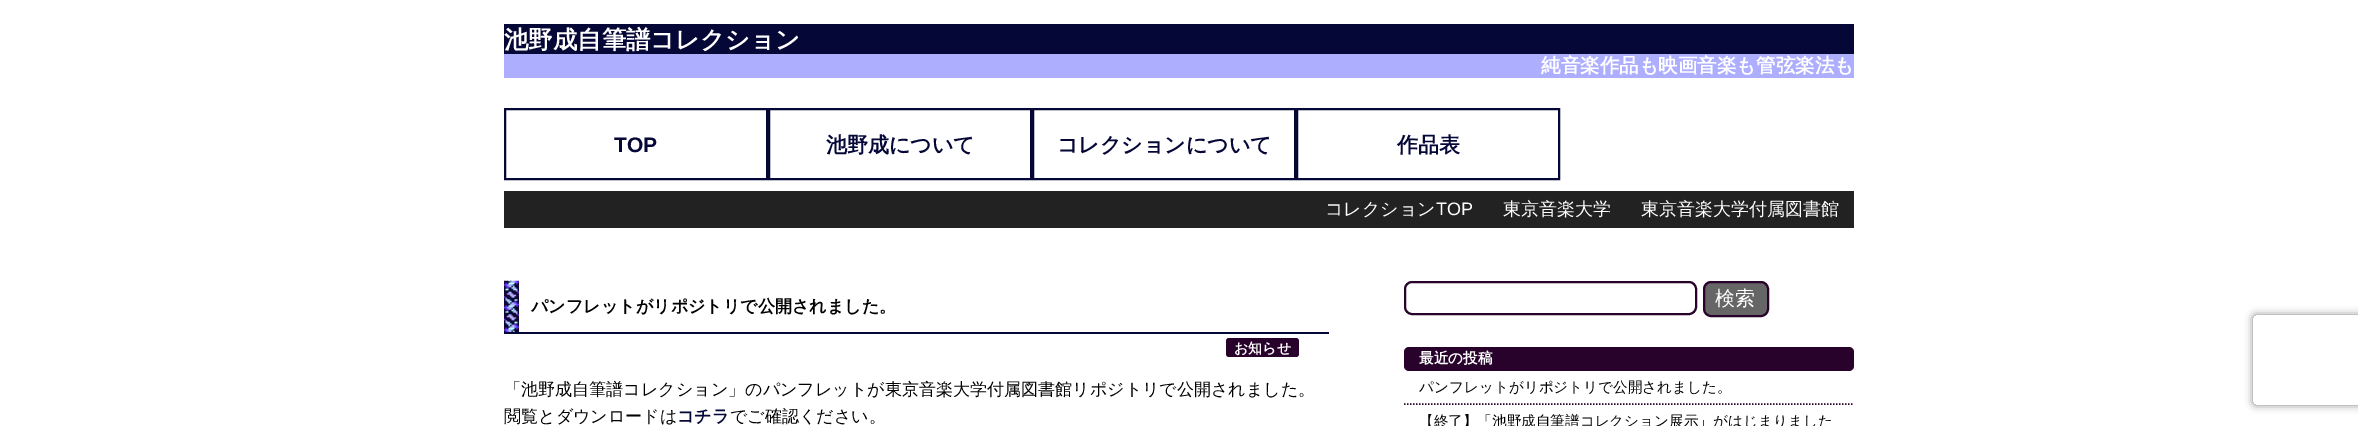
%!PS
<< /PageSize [2358 426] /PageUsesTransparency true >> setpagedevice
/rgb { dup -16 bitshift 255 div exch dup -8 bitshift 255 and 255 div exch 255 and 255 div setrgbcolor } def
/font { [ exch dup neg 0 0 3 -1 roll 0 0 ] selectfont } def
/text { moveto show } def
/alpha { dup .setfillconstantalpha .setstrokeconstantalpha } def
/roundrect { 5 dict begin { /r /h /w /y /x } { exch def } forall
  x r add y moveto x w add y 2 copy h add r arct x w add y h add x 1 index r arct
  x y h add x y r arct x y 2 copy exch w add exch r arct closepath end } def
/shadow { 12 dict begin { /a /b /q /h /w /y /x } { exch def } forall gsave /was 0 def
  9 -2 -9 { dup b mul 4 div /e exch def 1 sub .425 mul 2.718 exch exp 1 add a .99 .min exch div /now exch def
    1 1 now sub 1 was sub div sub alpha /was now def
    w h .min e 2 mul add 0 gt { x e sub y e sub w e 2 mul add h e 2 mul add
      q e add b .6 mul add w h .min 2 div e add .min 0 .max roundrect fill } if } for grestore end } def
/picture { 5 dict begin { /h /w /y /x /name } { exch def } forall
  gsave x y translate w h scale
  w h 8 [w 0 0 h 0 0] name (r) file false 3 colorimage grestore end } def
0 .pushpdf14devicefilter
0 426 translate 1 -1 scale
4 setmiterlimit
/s1 { /WenQuanYiZenHei-Bold 24.4 font 16#FFFFFF rgb } def
/s2 { /WenQuanYiZenHei-Bold 19.5 font 16#FFFFFF rgb } def
/s3 { /LiberationSans-Bold 21 font 16#050736 rgb } def
/s4 { /WenQuanYiZenHei-Bold 21 font 16#050736 rgb } def
/s5 { /WenQuanYiZenHei-Medium 18 font 16#FFFFFF rgb } def
/s6 { /LiberationSans-Regular 18 font 16#FFFFFF rgb } def
/s7 { /WenQuanYiZenHei-Bold 17.05 font 16#000000 rgb } def
/s8 { /WenQuanYiZenHei-Bold 14 font 16#FFFFFF rgb } def
/s9 { /WenQuanYiZenHei-Medium 17.05 font 16#000000 rgb } def
/s10 { /WenQuanYiZenHei-Bold 17.05 font 16#050736 rgb } def
/s11 { /WenQuanYiZenHei-Medium 20 font 16#FFFFFF rgb } def
/s12 { /WenQuanYiZenHei-Bold 14.6 font 16#FFFFFF rgb } def
/s13 { /WenQuanYiZenHei-Medium 14.6 font 16#000000 rgb } def
16#FFFFFF rgb
0 0 2358 426 rectfill
16#050736 rgb
504 24 1350 30 rectfill
s1
(池野成自筆譜コレクション) 504 48 text
16#AEAEFF rgb
504 54 1350 24 rectfill
s2
(純音楽作品も映画音楽も管弦楽法も) 1541 72 text
16#050736 rgb
2 setlinewidth
505 109 262 70 rectstroke
s3
(TOP) 614 152 text
769 109 262 70 rectstroke
s4
(池野成について) 826 152 text
1033 109 262 70 rectstroke
(コレクションについて) 1057 152 text
1297 109 262 70 rectstroke
(作品表) 1397 152 text
16#222222 rgb
504 191 1350 37 rectfill
s5
(コレクション) 1325 215 text
s6
(TOP) 1436 215 text
s5
(東京音楽大学) 1503 215 text
(東京音楽大学付属図書館) 1641 215 text
(pic1.raw) 504 280 15 52 picture
16#050736 rgb
504 332 825 2 rectfill
s7
(パンフレットがリポジトリで公開されました。) 531 312 text
16#28022B rgb
1226 338 73 19 3 roundrect fill
s8
(お知らせ) 1234 353 text
s9
(「池野成自筆譜コレクション」のパンフレットが東京音楽大学付属図書館リポジトリで公開されました。) 504 395 text
(閲覧とダウンロードは) 504 422 text
s10
(コチラ) 677 422 text
s9
(でご確認ください。) 730 422 text
16#28022B rgb
1405 282 291 32 7 roundrect stroke
16#666666 rgb
1704 282 64 34 7 roundrect gsave fill grestore
16#28022B rgb
stroke
s11
(検索) 1715 305 text
16#28022B rgb
1404 347 450 24 5 roundrect fill
s12
(最近の投稿) 1419 363 text
16#28022B rgb
1.5 setlinewidth
[1.5 1.5] 0 setdash
1404 404 moveto 1854 404 lineto stroke
s13
(パンフレットがリポジトリで公開されました。) 1419 392 text
(【終了】「池野成自筆譜コレクション展示」がはじまりました) 1419 426 text
gsave
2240 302 moveto 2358 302 lineto 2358 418 lineto 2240 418 lineto closepath 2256 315 moveto 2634 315 lineto 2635.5 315 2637 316.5 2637 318 curveto 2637 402 lineto 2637 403.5 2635.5 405 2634 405 curveto 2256 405 lineto 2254.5 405 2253 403.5 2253 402 curveto 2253 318 lineto 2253 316.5 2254.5 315 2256 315 curveto closepath eoclip newpath
16#808080 rgb
2253 315 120 90 3 4 1 shadow
grestore
.poppdf14devicefilter showpage
